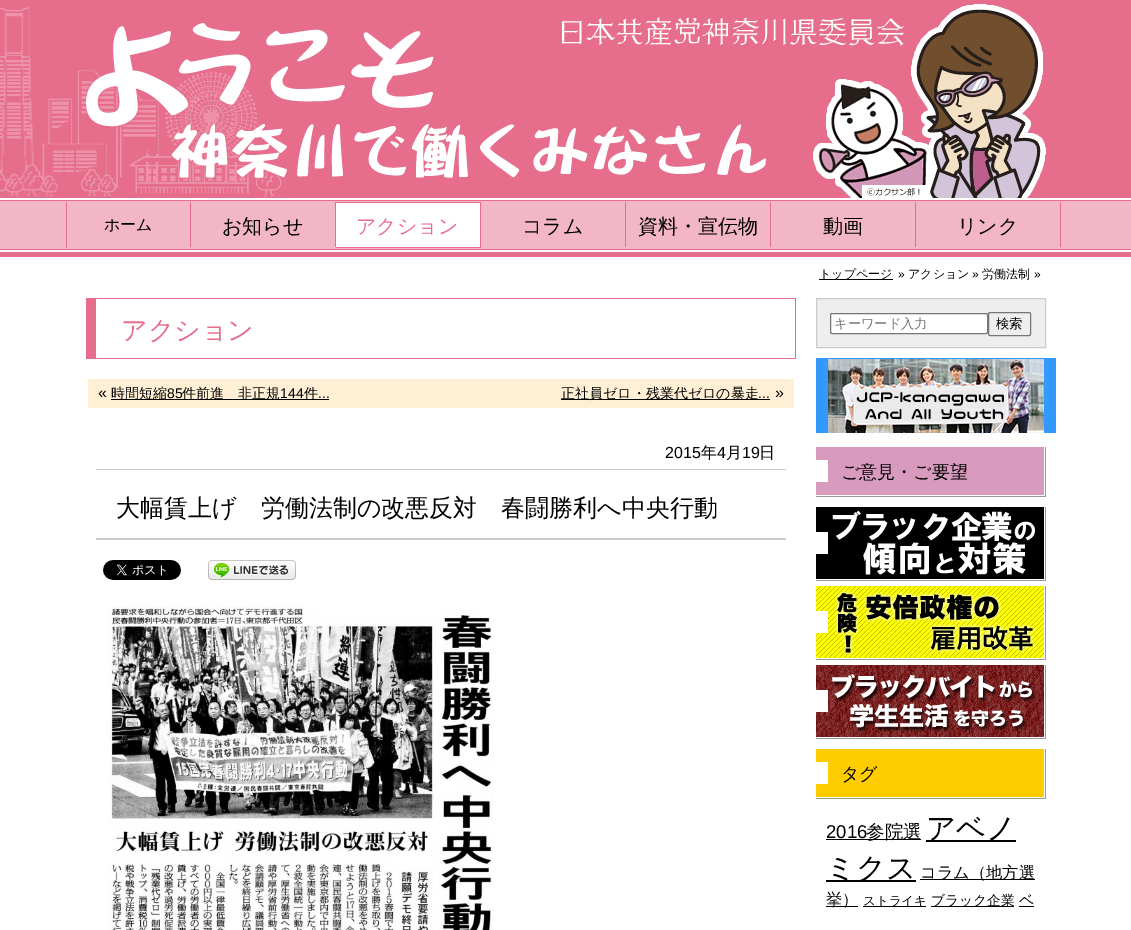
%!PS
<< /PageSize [1131 930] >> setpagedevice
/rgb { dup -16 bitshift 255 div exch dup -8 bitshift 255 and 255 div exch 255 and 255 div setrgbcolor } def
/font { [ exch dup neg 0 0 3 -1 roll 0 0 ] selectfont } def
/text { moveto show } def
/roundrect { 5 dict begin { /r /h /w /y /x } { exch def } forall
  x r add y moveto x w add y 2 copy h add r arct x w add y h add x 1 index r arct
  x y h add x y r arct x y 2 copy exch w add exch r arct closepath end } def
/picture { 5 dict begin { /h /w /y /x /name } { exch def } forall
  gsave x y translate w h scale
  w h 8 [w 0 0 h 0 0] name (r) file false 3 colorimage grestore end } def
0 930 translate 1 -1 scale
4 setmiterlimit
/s1 { /WenQuanYiZenHei-Medium 16 font 16#000000 rgb } def
/s2 { /WenQuanYiZenHei-Medium 20 font 16#000000 rgb } def
/s3 { /WenQuanYiZenHei-Medium 20 font 16#E76D8D rgb } def
/s4 { /WenQuanYiZenHei-Medium 12 font 16#000000 rgb } def
/s5 { /LiberationSans-Regular 12 font 16#000000 rgb } def
/s6 { /WenQuanYiZenHei-Medium 26 font 16#E76D8D rgb } def
/s7 { /LiberationSans-Regular 16 font 16#000000 rgb } def
/s8 { /WenQuanYiZenHei-Medium 14 font 16#000000 rgb } def
/s9 { /LiberationSans-Regular 14 font 16#000000 rgb } def
/s10 { /WenQuanYiZenHei-Medium 24 font 16#000000 rgb } def
/s11 { /WenQuanYiZenHei-Medium 13.25 font 16#757575 rgb } def
/s12 { /WenQuanYiZenHei-Medium 13.25 font 16#000000 rgb } def
/s13 { /WenQuanYiZenHei-Medium 18 font 16#000000 rgb } def
/s14 { /LiberationSans-Regular 18.5 font 16#000000 rgb } def
/s15 { /WenQuanYiZenHei-Medium 18.5 font 16#000000 rgb } def
/s16 { /WenQuanYiZenHei-Medium 29.5 font 16#000000 rgb } def
/s17 { /WenQuanYiZenHei-Medium 16.25 font 16#000000 rgb } def
/s18 { /WenQuanYiZenHei-Medium 12.5 font 16#000000 rgb } def
/s19 { /WenQuanYiZenHei-Medium 13.75 font 16#000000 rgb } def
/s20 { /WenQuanYiZenHei-Medium 15 font 16#000000 rgb } def
16#FFFFFF rgb
0 0 1131 930 rectfill
(pic1.raw) 0 0 1131 257 picture
(pic2.raw) 66 70 216 127 picture
(pic3.raw) 86 4 960 194 picture
(pic4.raw) 66 200 1000 57 picture
16#E76D8D rgb
190 202 1 46 rectfill
16#F3B6C6 rgb
190 247 1 1 rectfill
16#E76D8D rgb
66 202 1 46 rectfill
s1
(ホーム) 104 230 text
16#E76D8D rgb
335 202 1 46 rectfill
16#F3B6C6 rgb
335 247 1 1 rectfill
s2
(お知らせ) 222 233 text
16#FFFFFF rgb
336 203 144 44 rectfill
16#E76D8D rgb
336 202 145 1 rectfill
480 202 1 46 rectfill
336 247 145 1 rectfill
(アクション) 356 233 text
625 202 1 46 rectfill
16#F3B6C6 rgb
625 247 1 1 rectfill
s2
(コラム) 522 233 text
16#E76D8D rgb
770 202 1 46 rectfill
16#F3B6C6 rgb
770 247 1 1 rectfill
s2
(資料・宣伝物) 638 233 text
16#E76D8D rgb
915 202 1 46 rectfill
16#F3B6C6 rgb
915 247 1 1 rectfill
s2
(動画) 823 233 text
16#E76D8D rgb
1060 202 1 46 rectfill
16#F3B6C6 rgb
1060 247 1 1 rectfill
s2
(リンク) 957 233 text
819 279 74 1 rectfill
s4
(トップページ) 819 278 text
s5
(») 898 278 text
s4
(アクション) 908 278 text
s5
(») 972 278 text
s4
(労働法制) 982 278 text
s5
(») 1034 278 text
16#E76D8D rgb
96 298 700 1 rectfill
795 298 1 61 rectfill
96 358 700 1 rectfill
86 298 10 61 rectfill
s6
(アクション) 121 339 text
16#FFEFD5 rgb
88 379 706 29 rectfill
s7
(«) 98 398 text
111 399 218 1 rectfill
s8
(時間短縮) 111 398 text
s9
(85) 167 398 text
s8
(件前進　非正規) 182 398 text
s9
(144) 280 398 text
s8
(件) 304 398 text
s9
(...) 318 398 text
561 399 209 1 rectfill
s8
(正社員ゼロ・残業代ゼロの暴走) 561 398 text
s9
(...) 758 398 text
s7
(») 775 398 text
16#CCCCCC rgb
96 469 690 1 rectfill
s7
(2015) 665 458 text
s1
(年) 701 458 text
s7
(4) 717 458 text
s1
(月) 726 458 text
s7
(19) 742 458 text
s1
(日) 759 458 text
16#CCCCCC rgb
96 538 690 2 rectfill
s10
(大幅賃上げ　労働法制の改悪反対　春闘勝利へ中央行動) 116 516 text
(pic5.raw) 103 560 78 20 picture
(pic6.raw) 208 560 88 20 picture
(pic7.raw) 108 606 386 324 picture
16#EEEEEE rgb
816.5 298.5 moveto 1045.5 298.5 lineto 1045.5 347.5 lineto 816.5 347.5 lineto closepath gsave fill grestore
16#CCCCCC rgb
stroke
16#FFFFFF rgb
830.5 313.5 157 20 1.5 roundrect gsave fill grestore
16#767676 rgb
stroke
s11
(キーワード入力) 834 328 text
16#767676 rgb
988.5 312.5 42 23 1.5 roundrect stroke
s12
(検索) 996 328 text
(pic8.raw) 816 358 240 75 picture
(pic9.raw) 816 447 230 50 picture
s13
(ご意見・ご要望) 841 478 text
(pic10.raw) 816 507 230 74 picture
(pic11.raw) 816 586 230 74 picture
(pic12.raw) 816 665 230 74 picture
(pic13.raw) 816 749 230 50 picture
(タグ) 841 780 text
s14
(2016) 826 838 text
826 839 95 1 rectfill
s15
(参院選) 866 838 text
926 840 90 2 rectfill
s16
(アベノ) 926 838 text
826 880 90 2 rectfill
(ミクス) 826 878 text
920 879 115 1 rectfill
s17
(コラム（地方選) 920 878 text
826 906 32 1 rectfill
(挙）) 826 905 text
863 906 63 1 rectfill
s18
(ストライキ) 863 905 text
931 906 83 1 rectfill
s19
(ブラック企業) 931 905 text
s20
(ベ) 1019 905 text
1019 906 15 1 rectfill
showpage
